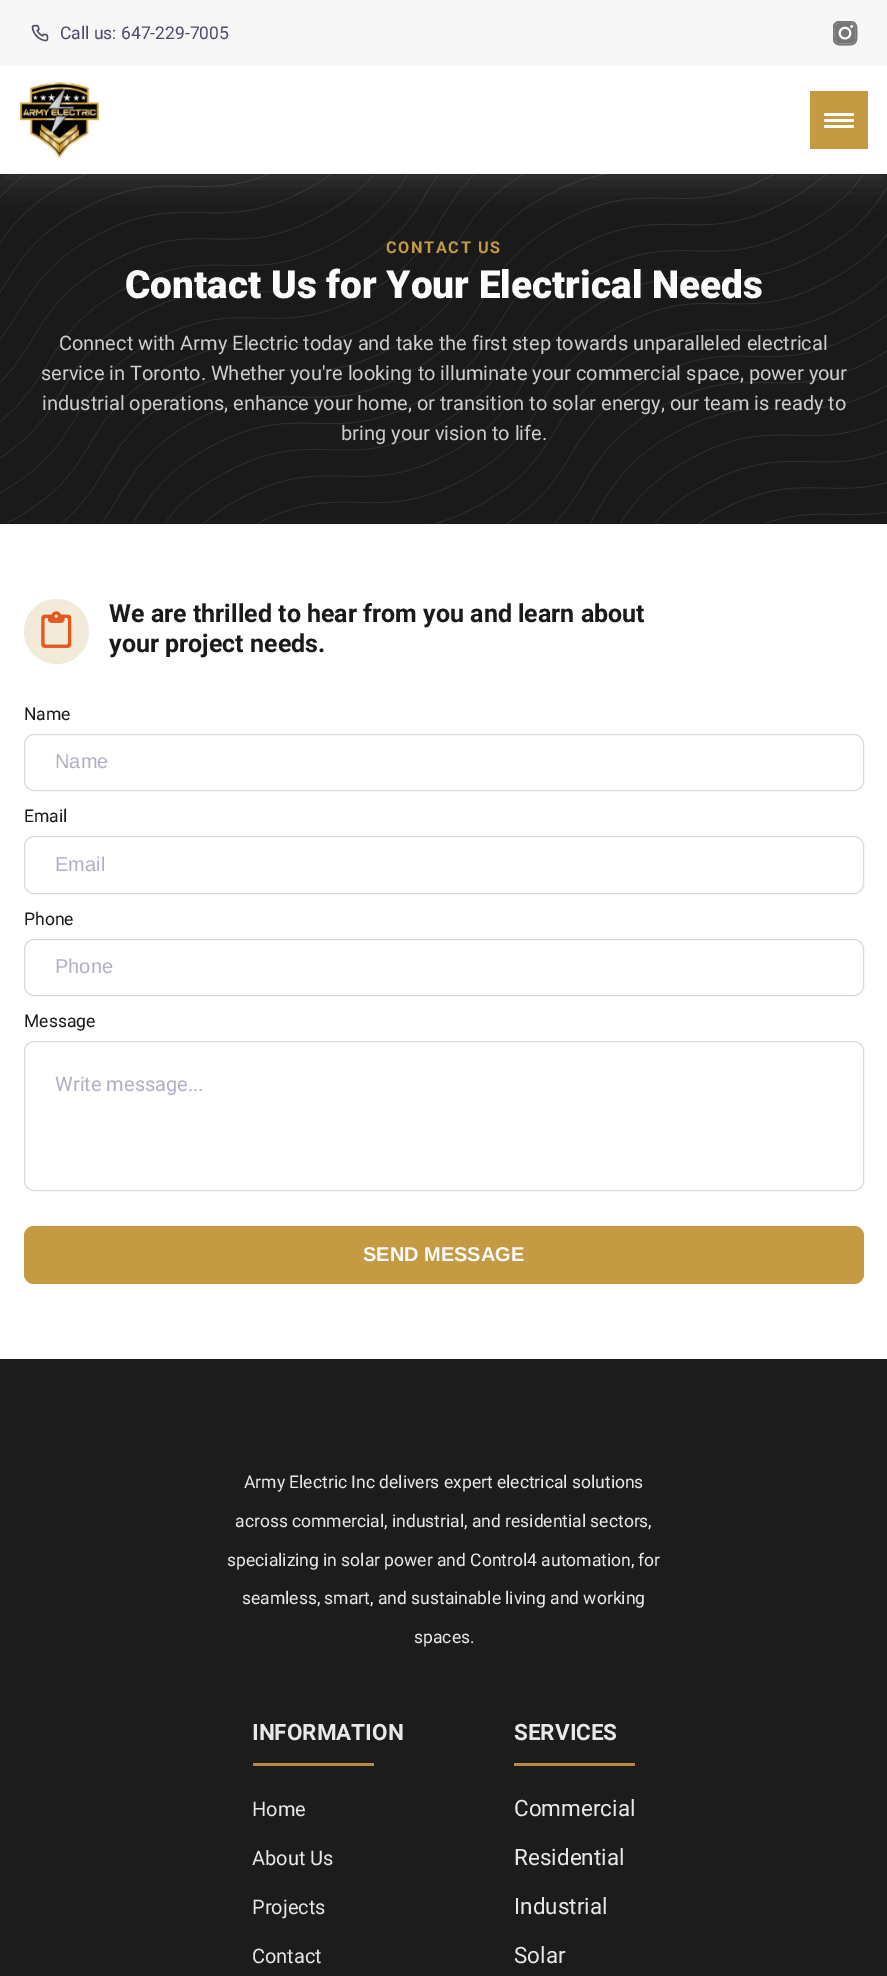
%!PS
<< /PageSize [887 1976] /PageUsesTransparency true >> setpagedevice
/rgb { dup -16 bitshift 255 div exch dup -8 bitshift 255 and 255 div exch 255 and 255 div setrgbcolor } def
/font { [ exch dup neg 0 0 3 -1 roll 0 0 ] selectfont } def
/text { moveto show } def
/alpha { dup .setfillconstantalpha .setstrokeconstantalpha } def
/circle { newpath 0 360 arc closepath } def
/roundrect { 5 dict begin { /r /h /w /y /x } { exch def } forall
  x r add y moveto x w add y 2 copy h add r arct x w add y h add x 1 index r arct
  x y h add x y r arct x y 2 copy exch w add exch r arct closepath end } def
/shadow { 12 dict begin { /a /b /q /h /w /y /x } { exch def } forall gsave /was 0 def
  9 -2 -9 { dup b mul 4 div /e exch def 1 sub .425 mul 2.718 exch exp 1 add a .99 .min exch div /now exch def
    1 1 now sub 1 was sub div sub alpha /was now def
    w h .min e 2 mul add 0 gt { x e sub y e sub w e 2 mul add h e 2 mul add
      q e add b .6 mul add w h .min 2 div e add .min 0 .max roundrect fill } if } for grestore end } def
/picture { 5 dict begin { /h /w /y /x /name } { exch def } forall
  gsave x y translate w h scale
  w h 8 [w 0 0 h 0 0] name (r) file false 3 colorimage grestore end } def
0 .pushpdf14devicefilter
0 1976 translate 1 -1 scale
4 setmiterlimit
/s1 { /Roboto-Regular 17.5 font 16#4E4B66 rgb } def
/s2 { /Roboto-Black 38.75 font 16#FAFBFC rgb } def
/s3 { /Roboto-Regular 20 font 16#CDCECF rgb } def
/s4 { /Roboto-Bold 25 font 16#1A1A1A rgb } def
/s5 { /Roboto-Regular 17.5 font 16#1A1A1A rgb } def
/s6 { /LiberationSans-Regular 20 font 16#B1AFC4 rgb } def
/s7 { /Roboto-Regular 20 font 16#B1AFC4 rgb } def
/s8 { /LiberationSans-Bold 20 font 16#FAFBFC rgb } def
/s9 { /Roboto-Regular 17.5 font 16#E8E8E8 rgb } def
/s10 { /Roboto-Bold 22.5 font 16#E8E8E8 rgb } def
/s11 { /Roboto-Regular 20 font 16#E8E8E8 rgb } def
/s12 { /Roboto-Regular 22.5 font 16#E8E8E8 rgb } def
16#FFFFFF rgb
0 0 887 1976 rectfill
16#1A1A1A rgb
0 174 887 350 rectfill
(pic4.raw) 0 174 887 350 picture
16#959DA5 rgb
0 10 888 174 0 15 0.2 shadow
16#FFFFFF rgb
0 66 887 108 rectfill
16#F7F7F7 rgb
0 0 887 66 rectfill
(pic1.raw) 31 24 18 18 picture
s1
(Call us: 647-229-7005) 60 39 text
(pic2.raw) 833 21 25 25 picture
(pic3.raw) 20 82 79 76 picture
16#C49A43 rgb
810 91 58 58 rectfill
16#FAFBFC rgb
824 113 30 3 1.5 roundrect fill
824 119 30 3 1.5 roundrect fill
824 125 30 3 1.5 roundrect fill
/Roboto-Bold 16.25 font
16#C49A43 rgb
386 253 moveto 1.6 0 (CONTACT US) ashow
s2
(Contact Us for Your Electrical Needs) 125 298 text
s3
(Connect with Army Electric today and take the first step towards unparalleled electrical) 59 350 text
(service in Toronto. Whether you're looking to illuminate your commercial space, power your) 41 380 text
(industrial operations, enhance your home, or transition to solar energy, our team is ready to) 42 410 text
(bring your vision to life.) 341 440 text
(pic5.raw) 41 611 31 37 picture
0.2 alpha
16#C49A43 rgb
56.5 631.5 32.5 circle fill
1 alpha
s4
(We are thrilled to hear from you and learn about) 109 622 text
(your project needs.) 109 652 text
s5
(Name) 24 720 text
16#DAD9E3 rgb
24.5 734.5 839 56 9.5 roundrect stroke
s6
(Name) 55 768 text
s5
(Email) 24 822 text
16#DAD9E3 rgb
24.5 836.5 839 57 9.5 roundrect stroke
s6
(Email) 55 871 text
s5
(Phone) 24 925 text
16#DAD9E3 rgb
24.5 939.5 839 56 9.5 roundrect stroke
s6
(Phone) 55 973 text
s5
(Message) 24 1027 text
16#DAD9E3 rgb
24.5 1041.5 839 149 9.5 roundrect stroke
s7
(Write message...) 55 1091 text
16#C49A43 rgb
24 1226 840 58 10 roundrect fill
s8
(SEND MESSAGE) 363 1261 text
16#1C1C1C rgb
0 1359 887 617 rectfill
s9
(Army Electric Inc delivers expert electrical solutions) 244 1488 text
(across commercial, industrial, and residential sectors,) 235 1527 text
(specializing in solar power and Control4 automation, for) 227 1566 text
(seamless, smart, and sustainable living and working) 242 1604 text
(spaces.) 414 1643 text
s10
(INFORMATION) 252 1740 text
16#B38D3F rgb
253 1763 121 3 rectfill
s11
(Home) 252 1816 text
(About Us) 252 1865 text
(Projects) 252 1914 text
(Contact) 252 1963 text
s10
(SERVICES) 514 1740 text
16#B38D3F rgb
514 1763 121 3 rectfill
s12
(Commercial) 514 1816 text
(Residential) 514 1865 text
(Industrial) 514 1914 text
(Solar) 514 1963 text
.poppdf14devicefilter showpage
